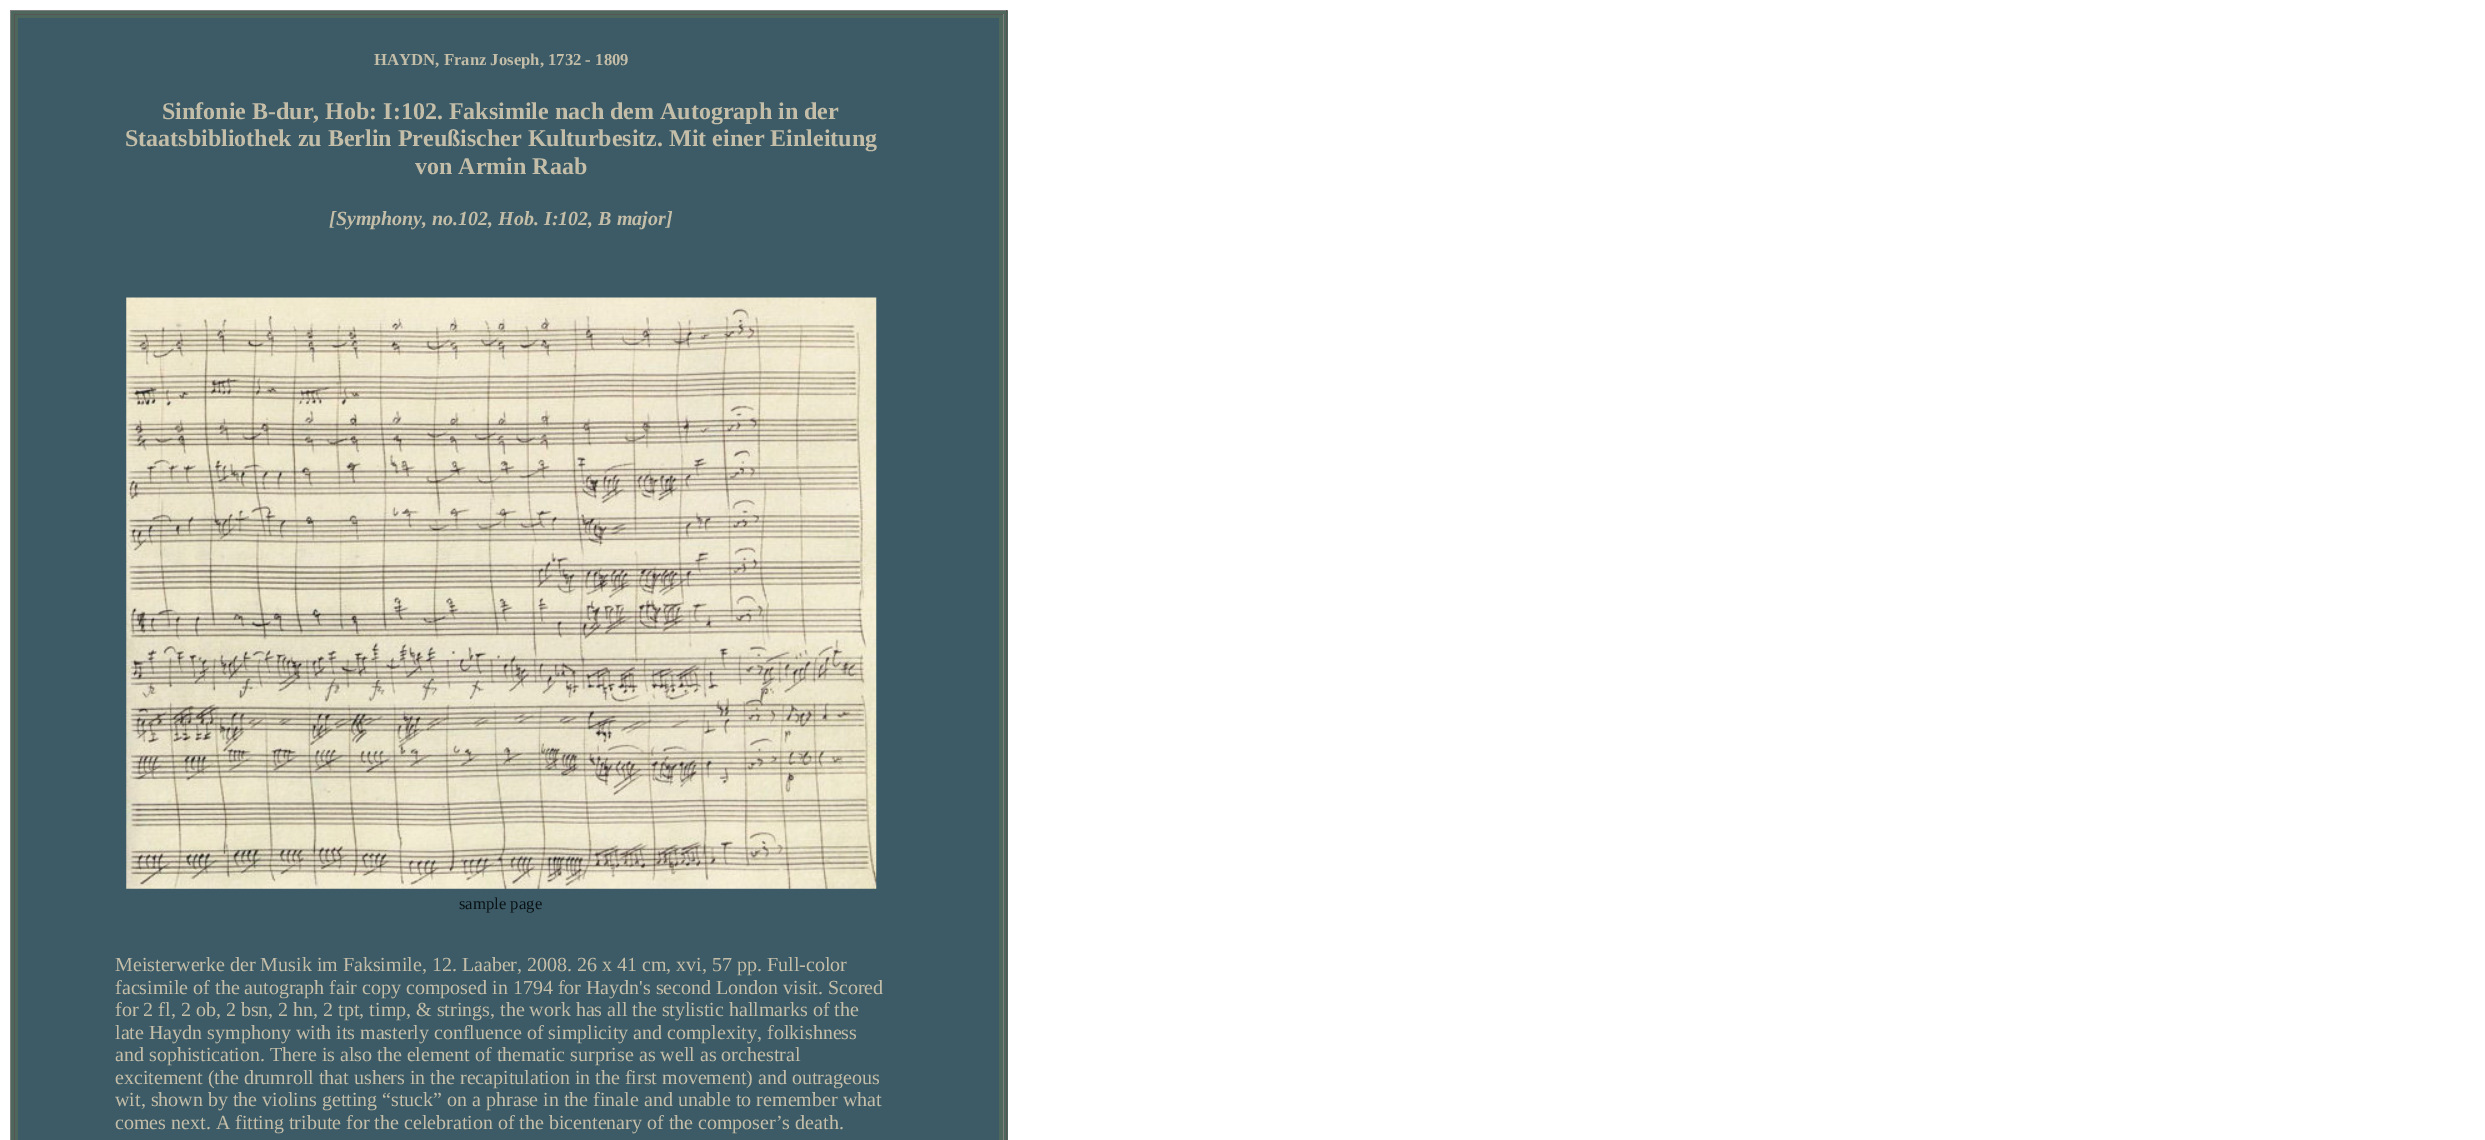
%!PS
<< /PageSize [2485 1140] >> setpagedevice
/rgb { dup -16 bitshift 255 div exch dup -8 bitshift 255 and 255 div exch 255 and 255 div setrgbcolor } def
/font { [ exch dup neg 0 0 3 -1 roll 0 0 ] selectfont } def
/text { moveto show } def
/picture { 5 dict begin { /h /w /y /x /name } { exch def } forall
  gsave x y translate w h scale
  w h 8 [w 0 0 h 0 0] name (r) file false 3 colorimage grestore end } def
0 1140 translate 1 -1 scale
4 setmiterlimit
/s1 { /LiberationSerif-Bold 16.7 font 16#C4BEA9 rgb } def
/s2 { /LiberationSerif-Bold 24 font 16#C4BEA9 rgb } def
/s3 { /LiberationSerif-BoldItalic 20 font 16#C4BEA9 rgb } def
/s4 { /LiberationSerif-Regular 16.7 font 16#091214 rgb } def
/s5 { /LiberationSerif-Regular 20 font 16#C4BEA9 rgb } def
16#FFFFFF rgb
0 0 2485 1140 rectfill
16#4E675C rgb
11 11 997 1129 rectfill
16#808080 rgb
10 10 998 1 rectfill
16#555555 rgb
1006 10 1 1130 rectfill
16#808080 rgb
10 10 1 1130 rectfill
16#555555 rgb
14 14 990 1 rectfill
16#808080 rgb
1003 14 1 1126 rectfill
16#555555 rgb
14 14 1 1126 rectfill
16#3D5B66 rgb
18 18 981 1122 rectfill
s1
(HAYDN, Franz Joseph, 1732 - 1809) 374 65 text
s2
(Sinfonie B-dur, Hob: I:102. Faksimile nach dem Autograph in der) 162 119 text
(Staatsbibliothek zu Berlin Preußischer Kulturbesitz. Mit einer Einleitung) 125 146 text
(von Armin Raab) 415 174 text
s3
([Symphony, no.102, Hob. I:102, B major]) 329 225 text
(pic1.raw) 126 297 751 592 picture
s4
(sample page) 459 909 text
s5
(Meisterwerke der Musik im Faksimile, 12. Laaber, 2008. 26 x 41 cm, xvi, 57 pp. Full-color) 115 971 text
(facsimile of the autograph fair copy composed in 1794 for Haydn's second London visit. Scored) 115 994 text
(for 2 fl, 2 ob, 2 bsn, 2 hn, 2 tpt, timp, & strings, the work has all the stylistic hallmarks of the) 115 1016 text
(late Haydn symphony with its masterly confluence of simplicity and complexity, folkishness) 115 1039 text
(and sophistication. There is also the element of thematic surprise as well as orchestral) 115 1061 text
(excitement \(the drumroll that ushers in the recapitulation in the first movement\) and outrageous) 115 1084 text
(wit, shown by the violins getting “stuck” on a phrase in the finale and unable to remember what) 115 1106 text
(comes next. A fitting tribute for the celebration of the bicentenary of the composer’s death.) 115 1129 text
showpage
